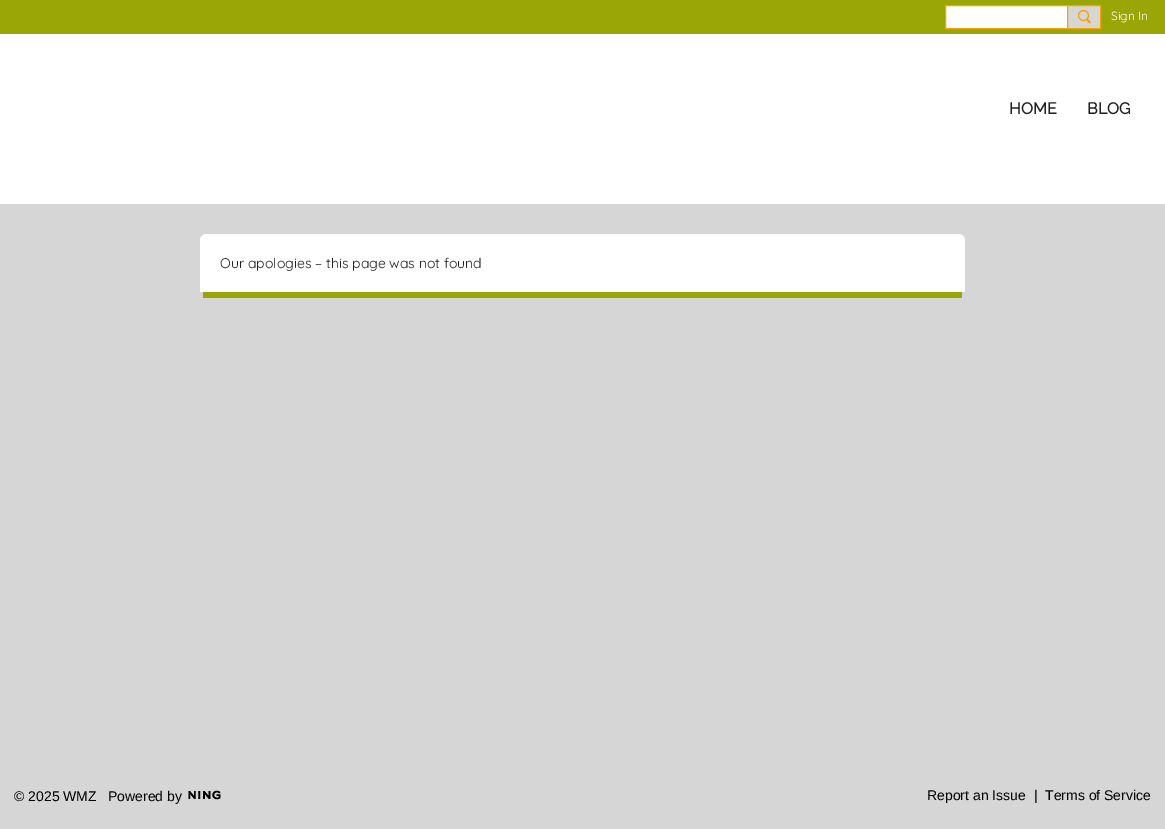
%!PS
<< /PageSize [1165 829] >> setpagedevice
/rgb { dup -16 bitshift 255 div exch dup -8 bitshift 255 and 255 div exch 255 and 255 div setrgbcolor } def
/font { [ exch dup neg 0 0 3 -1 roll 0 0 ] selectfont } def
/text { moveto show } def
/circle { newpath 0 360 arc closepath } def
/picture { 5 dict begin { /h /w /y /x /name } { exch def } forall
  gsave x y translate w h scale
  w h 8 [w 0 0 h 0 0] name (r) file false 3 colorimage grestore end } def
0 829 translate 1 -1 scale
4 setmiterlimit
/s1 { /Quicksand-Light 12 font 16#FFFFFF rgb } def
/s2 { /Raleway-Bold 16 font 16#1F1F1F rgb } def
/s3 { /Quicksand-Light 14 font 16#1F1F1F rgb } def
/s4 { /LiberationSans-Regular 14 font 16#000000 rgb } def
16#D6D6D6 rgb
0 0 1165 829 rectfill
16#99A606 rgb
0 0 1165 34 rectfill
16#FFFFFF rgb
945.5 5.5 moveto 1067.5 5.5 lineto 1067.5 28.5 lineto 945.5 28.5 lineto closepath gsave fill grestore
16#F5A300 rgb
stroke
16#D6D6D6 rgb
1067.5 5.5 moveto 1100.5 5.5 lineto 1100.5 28.5 lineto 1067.5 28.5 lineto closepath gsave fill grestore
16#F5A300 rgb
stroke
1083.5 15.5 5 circle stroke
1088 19 moveto 1090.5 21.5 lineto 1090.5 22 1090.5 22.5 1090.5 23 curveto 1089 24 1087.5 21.5 1087 20.5 curveto 1086 19.5 1087.5 18.5 1088 19 curveto closepath fill
s1
(Sign In) 1111 20 text
0 34 1165 170 rectfill
s2
(HOME) 1009 114 text
(BLOG) 1087 114 text
16#FFFFFF rgb
206 234 moveto 959 234 lineto 962 234 965 237 965 240 curveto 965 292 lineto 200 292 lineto 200 240 lineto 200 237 203 234 206 234 curveto closepath fill
16#99A606 rgb
203 292 759 6 rectfill
s3
(Our apologies – this page was not found) 220 268 text
s4
(© 2025 WMZ) 14 801 text
(Powered by) 108 801 text
(pic1.raw) 188 790 33 10 picture
(Report an Issue) 927 800 text
(|) 1034 800 text
(Terms of Service) 1045 800 text
showpage
